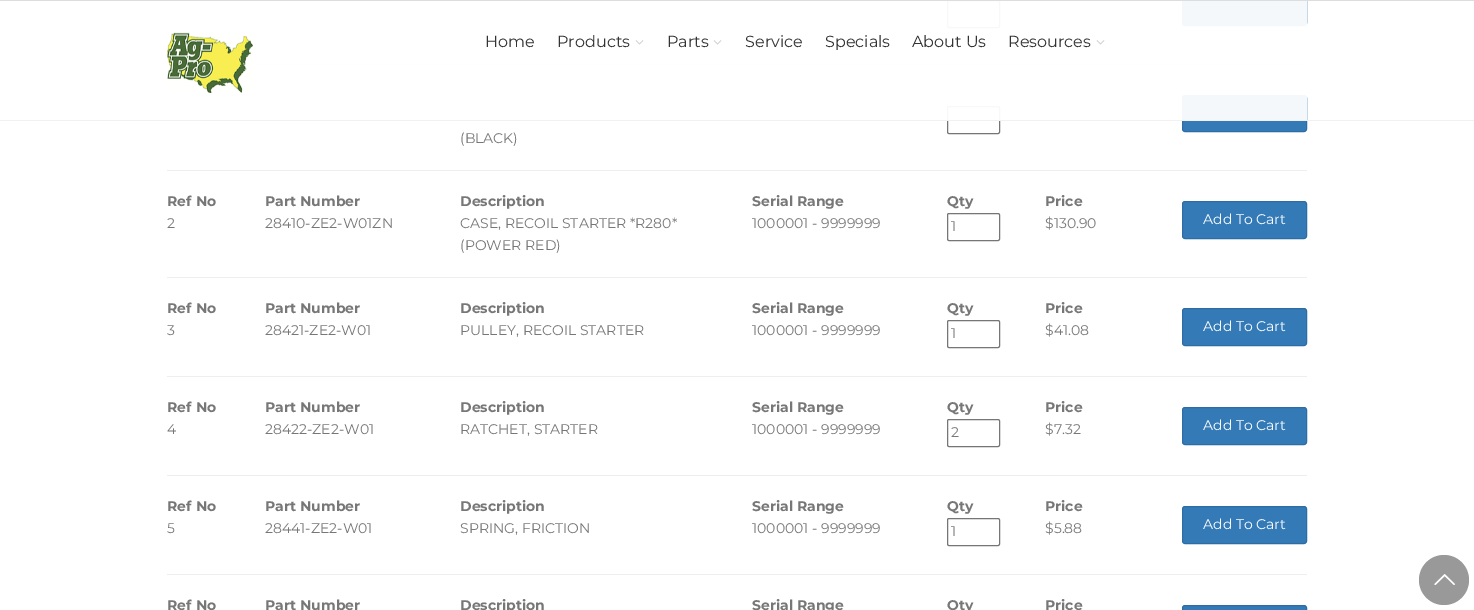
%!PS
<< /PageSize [1474 610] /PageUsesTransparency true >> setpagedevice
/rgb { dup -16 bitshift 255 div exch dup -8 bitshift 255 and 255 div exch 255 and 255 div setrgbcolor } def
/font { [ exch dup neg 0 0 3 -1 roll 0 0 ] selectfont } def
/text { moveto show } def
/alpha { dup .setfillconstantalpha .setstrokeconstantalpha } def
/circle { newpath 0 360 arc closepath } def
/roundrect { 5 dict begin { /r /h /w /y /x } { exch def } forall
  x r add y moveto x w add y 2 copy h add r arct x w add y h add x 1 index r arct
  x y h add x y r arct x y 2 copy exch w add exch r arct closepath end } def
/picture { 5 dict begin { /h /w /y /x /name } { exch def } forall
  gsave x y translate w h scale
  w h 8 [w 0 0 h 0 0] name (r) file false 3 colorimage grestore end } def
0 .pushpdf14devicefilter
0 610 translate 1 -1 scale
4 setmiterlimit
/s1 { /Montserrat-Regular 16 font 16#333333 rgb } def
/s2 { /Montserrat-Regular 14 font 16#777777 rgb } def
/s3 { /Montserrat-Bold 14 font 16#777777 rgb } def
/s4 { /Montserrat-Regular 14 font 16#FFFFFF rgb } def
16#FFFFFF rgb
0 0 1474 610 rectfill
16#767676 rgb
947.5 0.5 52 27 1.5 roundrect stroke
16#337AB7 rgb
1182.5 -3.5 124 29 2.5 roundrect gsave fill grestore
16#2E6DA4 rgb
stroke
16#EEEEEE rgb
253 64 1054 1 rectfill
16#767676 rgb
947.5 106.5 52 27 1.5 roundrect stroke
16#337AB7 rgb
1182.5 95.5 124 36 2.5 roundrect gsave fill grestore
16#2E6DA4 rgb
stroke
0.95 alpha
16#FFFFFF rgb
253 1 1054 119 rectfill
1 alpha
16#DDDDDD rgb
0 0 1474 1 rectfill
16#F1F1F1 rgb
0 120 1474 1 rectfill
(pic1.raw) 167 32 86 61 picture
s1
(Home) 485 47 text
(Products) 557 47 text
(pic2.raw) 635 40 9 5 picture
(Parts) 667 47 text
(pic2.raw) 713 40 9 5 picture
(Service) 745 47 text
(Specials) 825 47 text
(About Us) 912 47 text
(Resources) 1008 47 text
(pic2.raw) 1096 40 9 5 picture
s2
(\(BLACK\)) 460 143 text
16#EEEEEE rgb
167 170 1140 1 rectfill
s3
(Ref No) 167 206 text
s2
(2) 167 228 text
s3
(Part Number) 265 206 text
s2
(28410-ZE2-W01ZN) 265 228 text
s3
(Description) 460 206 text
s2
(CASE, RECOIL STARTER *R280*) 460 228 text
(\(POWER RED\)) 460 250 text
s3
(Serial Range) 752 206 text
s2
(1000001 - 9999999) 752 228 text
s3
(Qty) 947 206 text
16#767676 rgb
947.5 213.5 52 27 1.5 roundrect stroke
s2
(1) 951 231 text
s3
(Price) 1045 206 text
s2
($130.90) 1045 228 text
16#337AB7 rgb
1182.5 201.5 124 37 2.5 roundrect gsave fill grestore
16#2E6DA4 rgb
stroke
s4
(Add To Cart) 1203 224 text
16#EEEEEE rgb
167 277 1140 1 rectfill
s3
(Ref No) 167 313 text
s2
(3) 167 335 text
s3
(Part Number) 265 313 text
s2
(28421-ZE2-W01) 265 335 text
s3
(Description) 460 313 text
s2
(PULLEY, RECOIL STARTER) 460 335 text
s3
(Serial Range) 752 313 text
s2
(1000001 - 9999999) 752 335 text
s3
(Qty) 947 313 text
16#767676 rgb
947.5 320.5 52 27 1.5 roundrect stroke
s2
(1) 951 338 text
s3
(Price) 1045 313 text
s2
($41.08) 1045 335 text
16#337AB7 rgb
1182.5 308.5 124 37 2.5 roundrect gsave fill grestore
16#2E6DA4 rgb
stroke
s4
(Add To Cart) 1203 331 text
16#EEEEEE rgb
167 376 1140 1 rectfill
s3
(Ref No) 167 412 text
s2
(4) 167 434 text
s3
(Part Number) 265 412 text
s2
(28422-ZE2-W01) 265 434 text
s3
(Description) 460 412 text
s2
(RATCHET, STARTER) 460 434 text
s3
(Serial Range) 752 412 text
s2
(1000001 - 9999999) 752 434 text
s3
(Qty) 947 412 text
16#767676 rgb
947.5 419.5 52 27 1.5 roundrect stroke
s2
(2) 951 437 text
s3
(Price) 1045 412 text
s2
($7.32) 1045 434 text
16#337AB7 rgb
1182.5 407.5 124 37 2.5 roundrect gsave fill grestore
16#2E6DA4 rgb
stroke
s4
(Add To Cart) 1203 430 text
16#EEEEEE rgb
167 475 1140 1 rectfill
s3
(Ref No) 167 511 text
s2
(5) 167 533 text
s3
(Part Number) 265 511 text
s2
(28441-ZE2-W01) 265 533 text
s3
(Description) 460 511 text
s2
(SPRING, FRICTION) 460 533 text
s3
(Serial Range) 752 511 text
s2
(1000001 - 9999999) 752 533 text
s3
(Qty) 947 511 text
16#767676 rgb
947.5 518.5 52 27 1.5 roundrect stroke
s2
(1) 951 536 text
s3
(Price) 1045 511 text
s2
($5.88) 1045 533 text
16#337AB7 rgb
1182.5 506.5 124 37 2.5 roundrect gsave fill grestore
16#2E6DA4 rgb
stroke
s4
(Add To Cart) 1203 529 text
16#EEEEEE rgb
167 574 1140 1 rectfill
s3
(Ref No) 167 610 text
(Part Number) 265 610 text
(Description) 460 610 text
(Serial Range) 752 610 text
(Qty) 947 610 text
(Price) 1045 610 text
16#337AB7 rgb
1182.5 605.5 124 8 2.5 roundrect gsave fill grestore
16#2E6DA4 rgb
stroke
16#999999 rgb
1444 580 25 circle fill
(pic3.raw) 1434 574 21 11 picture
.poppdf14devicefilter showpage
